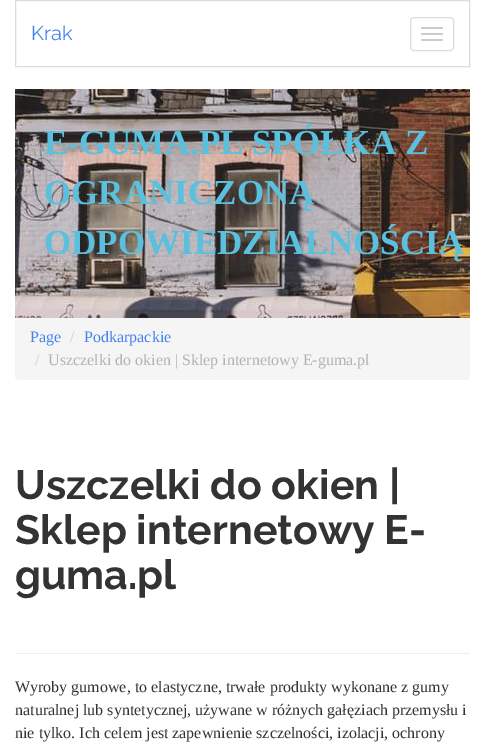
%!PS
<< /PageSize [485 746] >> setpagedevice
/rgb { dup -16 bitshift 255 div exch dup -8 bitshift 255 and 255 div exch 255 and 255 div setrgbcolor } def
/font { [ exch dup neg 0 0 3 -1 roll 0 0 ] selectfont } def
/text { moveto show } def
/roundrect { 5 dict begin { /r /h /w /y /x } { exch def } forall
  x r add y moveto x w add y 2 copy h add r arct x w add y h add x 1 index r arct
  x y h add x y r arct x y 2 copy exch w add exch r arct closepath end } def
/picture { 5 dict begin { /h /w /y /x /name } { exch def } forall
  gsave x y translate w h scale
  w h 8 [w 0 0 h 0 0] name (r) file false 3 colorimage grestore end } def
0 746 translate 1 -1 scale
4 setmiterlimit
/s1 { /Raleway-Regular 20 font 16#4582EC rgb } def
/s2 { /LiberationSerif-Bold 35 font 16#5BC0DE rgb } def
/s3 { /LiberationSerif-Regular 16 font 16#4582EC rgb } def
/s4 { /LiberationSerif-Regular 16 font 16#CCCCCC rgb } def
/s5 { /LiberationSerif-Regular 16 font 16#B3B3B3 rgb } def
/s6 { /Raleway-Bold 41 font 16#333333 rgb } def
/s7 { /LiberationSerif-Regular 16 font 16#333333 rgb } def
16#FFFFFF rgb
0 0 485 746 rectfill
16#DDDDDD rgb
15.5 0.5 454 66 rectstroke
s1
(Krak) 31 40 text
16#DDDDDD rgb
410.5 17.5 43 33 3.5 roundrect stroke
16#CCCCCC rgb
421 27 22 2 1 roundrect fill
421 33 22 2 1 roundrect fill
421 39 22 2 1 roundrect fill
(pic1.raw) 15 89 455 229 picture
s2
(E-GUMA.PL SPÓŁKA Z) 44 154 text
(OGRANICZONĄ) 44 204 text
(ODPOWIEDZIALNOŚCIĄ) 44 254 text
16#F5F5F5 rgb
15 318 455 62 4 roundrect fill
s3
(Page) 30 342 text
s4
(/) 70 342 text
s3
(Podkarpackie) 84 342 text
s4
(/) 35 365 text
s5
(Uszczelki do okien | Sklep internetowy E-guma.pl) 48 365 text
s6
(Uszczelki do okien |) 15 499 text
(Sklep internetowy E-) 15 544 text
(guma.pl) 15 589 text
16#EEEEEE rgb
15 653 455 1 rectfill
s7
(Wyroby gumowe, to elastyczne, trwałe produkty wykonane z gumy) 15 692 text
(naturalnej lub syntetycznej, używane w różnych gałęziach przemysłu i) 15 715 text
(nie tylko. Ich celem jest zapewnienie szczelności, izolacji, ochrony) 15 738 text
showpage
